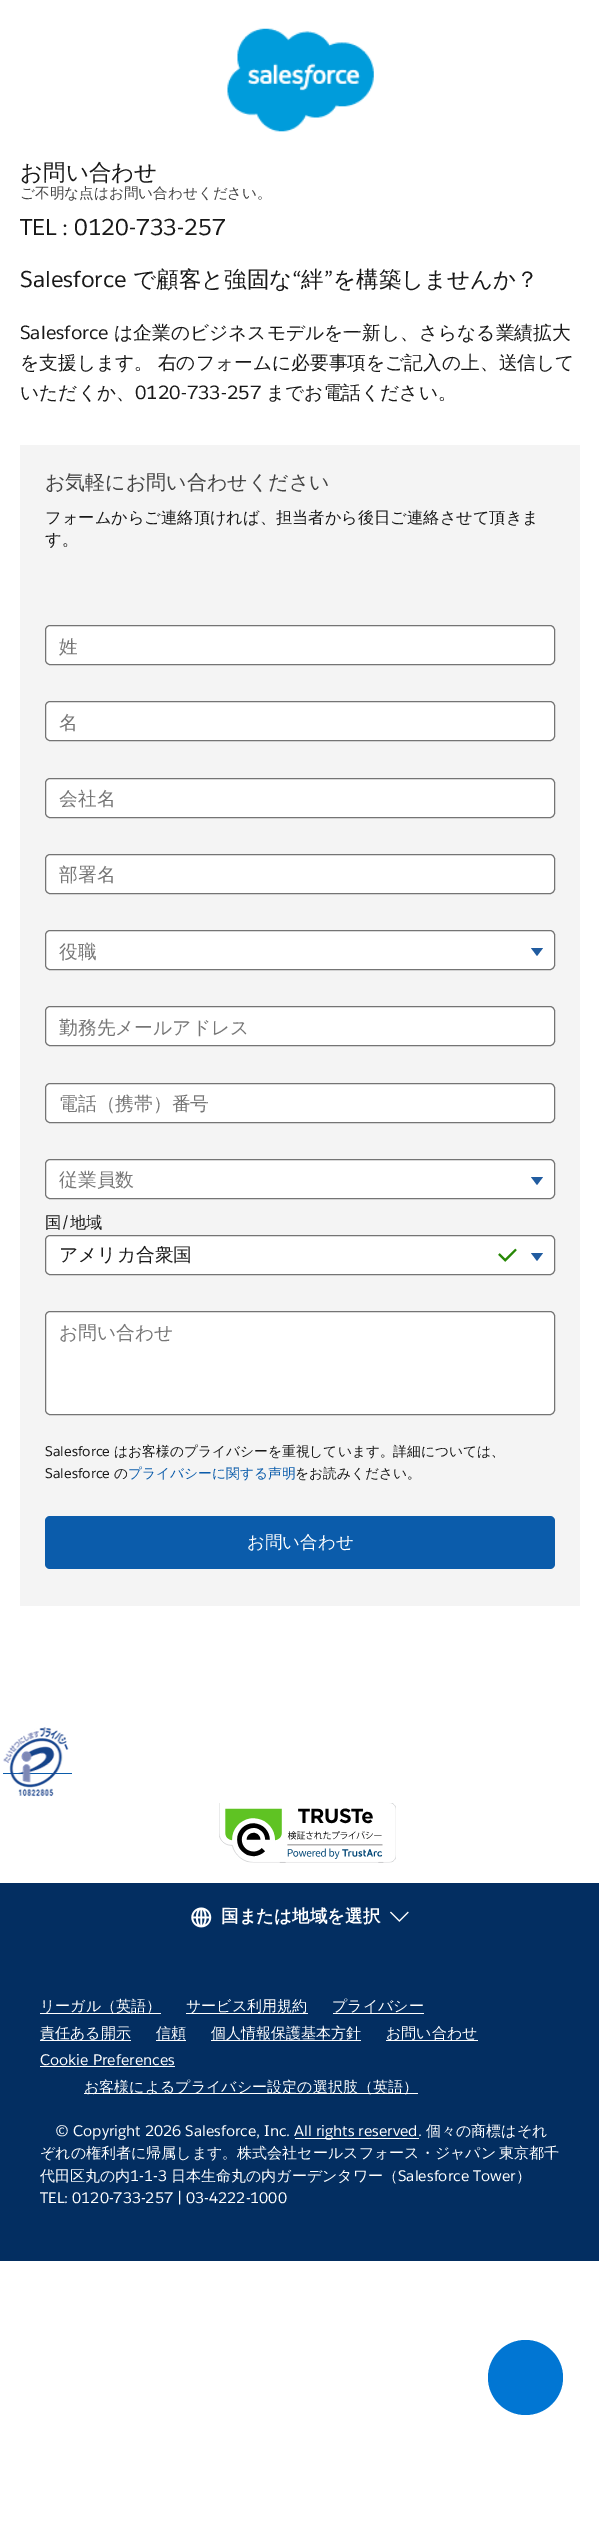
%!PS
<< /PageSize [599 2540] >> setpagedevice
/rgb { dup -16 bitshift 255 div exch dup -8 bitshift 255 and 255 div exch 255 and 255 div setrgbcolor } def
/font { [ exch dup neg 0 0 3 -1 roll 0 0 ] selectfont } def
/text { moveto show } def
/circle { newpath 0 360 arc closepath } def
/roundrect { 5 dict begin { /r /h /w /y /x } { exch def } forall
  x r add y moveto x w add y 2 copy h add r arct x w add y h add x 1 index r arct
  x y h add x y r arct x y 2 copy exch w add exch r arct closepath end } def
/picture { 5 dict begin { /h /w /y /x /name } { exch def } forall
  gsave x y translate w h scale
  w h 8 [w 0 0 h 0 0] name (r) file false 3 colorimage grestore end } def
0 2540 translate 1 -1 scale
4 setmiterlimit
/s1 { /WenQuanYiZenHei-Medium 22.5 font 16#181818 rgb } def
/s2 { /WenQuanYiZenHei-Medium 14.6 font 16#444444 rgb } def
/s3 { /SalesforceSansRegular-Regular 22.5 font 16#181818 rgb } def
/s4 { /SalesforceSansRegular-Regular 18.75 font 16#181818 rgb } def
/s5 { /WenQuanYiZenHei-Medium 18.75 font 16#181818 rgb } def
/s6 { /WenQuanYiZenHei-Medium 20 font 16#444444 rgb } def
/s7 { /WenQuanYiZenHei-Medium 16.25 font 16#181818 rgb } def
/s8 { /WenQuanYiZenHei-Medium 18.75 font 16#767676 rgb } def
/s9 { /SalesforceSansRegular-Regular 16.25 font 16#181818 rgb } def
/s10 { /SalesforceSansRegular-Regular 13.75 font 16#181818 rgb } def
/s11 { /WenQuanYiZenHei-Medium 13.75 font 16#181818 rgb } def
/s12 { /WenQuanYiZenHei-Medium 13.75 font 16#0B5CAB rgb } def
/s13 { /WenQuanYiZenHei-Medium 17.5 font 16#FFFFFF rgb } def
/s14 { /WenQuanYiZenHei-Bold 17.5 font 16#FFFFFF rgb } def
/s15 { /WenQuanYiZenHei-Medium 15 font 16#FFFFFF rgb } def
/s16 { /SalesforceSansRegular-Regular 15 font 16#FFFFFF rgb } def
16#FFFFFF rgb
0 0 599 2540 rectfill
(pic1.raw) 227 28 147 104 picture
s1
(お問い合わせ) 20 180 text
s2
(ご不明な点はお問い合わせください。) 20 198 text
s3
(TEL : 0120-733-257) 20 235 text
(Salesforce) 20 287 text
s1
(で顧客と強固な) 133 287 text
s3
(“) 292 287 text
s1
(絆) 301 287 text
s3
(”) 324 287 text
s1
(を構築しませんか？) 333 287 text
s4
(Salesforce) 20 339 text
s5
(は企業のビジネスモデルを一新し、さらなる業績拡大) 114 339 text
20 369 moveto -1 0 32 (を支援します。 右のフォームに必要事項をご記入の上、送信して) widthshow
(いただくか、) 20 399 text
s4
(0120-733-257) 135 399 text
s5
(までお電話ください。) 266 399 text
16#F4F4F4 rgb
20 445 560 1161 rectfill
s6
(お気軽にお問い合わせください) 45 489 text
s7
(フォームからご連絡頂ければ、担当者から後日ご連絡させて頂きま) 45 523 text
(す。) 45 545 text
16#FFFFFF rgb
45.5 625.5 509 39 4.5 roundrect gsave fill grestore
16#747474 rgb
stroke
s8
(姓) 59 653 text
16#FFFFFF rgb
45.5 701.5 509 39 4.5 roundrect gsave fill grestore
16#747474 rgb
stroke
s8
(名) 59 729 text
16#FFFFFF rgb
45.5 778.5 509 39 4.5 roundrect gsave fill grestore
16#747474 rgb
stroke
s8
(会社名) 59 805 text
16#FFFFFF rgb
45.5 854.5 509 39 4.5 roundrect gsave fill grestore
16#747474 rgb
stroke
s8
(部署名) 59 881 text
16#FFFFFF rgb
45.5 930.5 509 39 4.5 roundrect gsave fill grestore
16#747474 rgb
stroke
s8
(役職) 59 958 text
16#215CA0 rgb
531 948 moveto 543 948 lineto 537 956 lineto closepath fill
16#FFFFFF rgb
45.5 1006.5 509 39 4.5 roundrect gsave fill grestore
16#747474 rgb
stroke
s8
(勤務先メールアドレス) 59 1034 text
16#FFFFFF rgb
45.5 1083.5 509 39 4.5 roundrect gsave fill grestore
16#747474 rgb
stroke
s8
(電話（携帯）番号) 59 1110 text
16#FFFFFF rgb
45.5 1159.5 509 39 4.5 roundrect gsave fill grestore
16#747474 rgb
stroke
s8
(従業員数) 59 1186 text
16#215CA0 rgb
531 1177 moveto 543 1177 lineto 537 1185 lineto closepath fill
s7
(国) 45 1228 text
s9
(/) 61 1228 text
s7
(地域) 70 1228 text
16#FFFFFF rgb
45.5 1235.5 509 39 4.5 roundrect gsave fill grestore
16#747474 rgb
stroke
s5
(アメリカ合衆国) 59 1261 text
(pic2.raw) 498 1248 19 14 picture
16#215CA0 rgb
531 1253 moveto 543 1253 lineto 537 1261 lineto closepath fill
16#FFFFFF rgb
45.5 1311.5 509 103 4.5 roundrect gsave fill grestore
16#747474 rgb
stroke
s8
(お問い合わせ) 59 1339 text
s10
(Salesforce) 45 1456 text
s11
(はお客様のプライバシーを重視しています。詳細については、) 114 1456 text
s10
(Salesforce) 45 1478 text
s11
(の) 114 1478 text
s12
(プライバシーに関する声明) 128 1478 text
s11
(をお読みください。) 295 1478 text
16#0B5CAB rgb
45 1516 510 53 5 roundrect fill
s13
(お問い合わせ) 247 1548 text
16#0B5CAB rgb
0 1773 75 1 rectfill
16#FFFFFF rgb
3 setlinewidth
1.5 1724.5 72 77 rectstroke
(pic3.raw) 3 1727 66 70 picture
(pic4.raw) 219 1803 177 60 picture
16#032E61 rgb
0 1883 599 378 rectfill
(pic5.raw) 191 1907 21 21 picture
s14
(国または地域を選択) 221 1922 text
(pic6.raw) 390 1911 19 11 picture
40 2013 121 1 rectfill
s15
(リーガル（英語）) 40 2011 text
186 2013 122 1 rectfill
(サービス利用規約) 186 2011 text
(プライバシー) 332 2011 text
333 2013 91 1 rectfill
40 2040 91 1 rectfill
(責任ある開示) 40 2038 text
156 2040 30 1 rectfill
(信頼) 156 2038 text
211 2040 150 1 rectfill
(個人情報保護基本方針) 211 2038 text
386 2040 92 1 rectfill
(お問い合わせ) 386 2038 text
s16
(Cookie Preferences) 40 2065 text
40 2066 135 1 rectfill
84 2093 334 1 rectfill
s15
(お客様によるプライバシー設定の選択肢（英語）) 84 2092 text
s16
(© Copyright 2026 Salesforce, Inc.) 55 2136 text
295 2138 124 1 rectfill
(All rights reserved.) 294 2136 text
s15
(個々の商標はそれ) 426 2136 text
40 2158 moveto -1 0 32 (ぞれの権利者に帰属します。株式会社セールスフォース・ジャパン 東京都千) widthshow
(代田区丸の内) 40 2181 text
s16
(1-1-3) 130 2181 text
s15
(日本生命丸の内ガーデンタワー（) 171 2181 text
s16
(Salesforce Tower) 398 2181 text
s15
(）) 516 2181 text
s16
(TEL: 0120-733-257 | 03-4222-1000) 40 2203 text
16#0176D3 rgb
525.5 2377.5 37.5 circle fill
showpage
